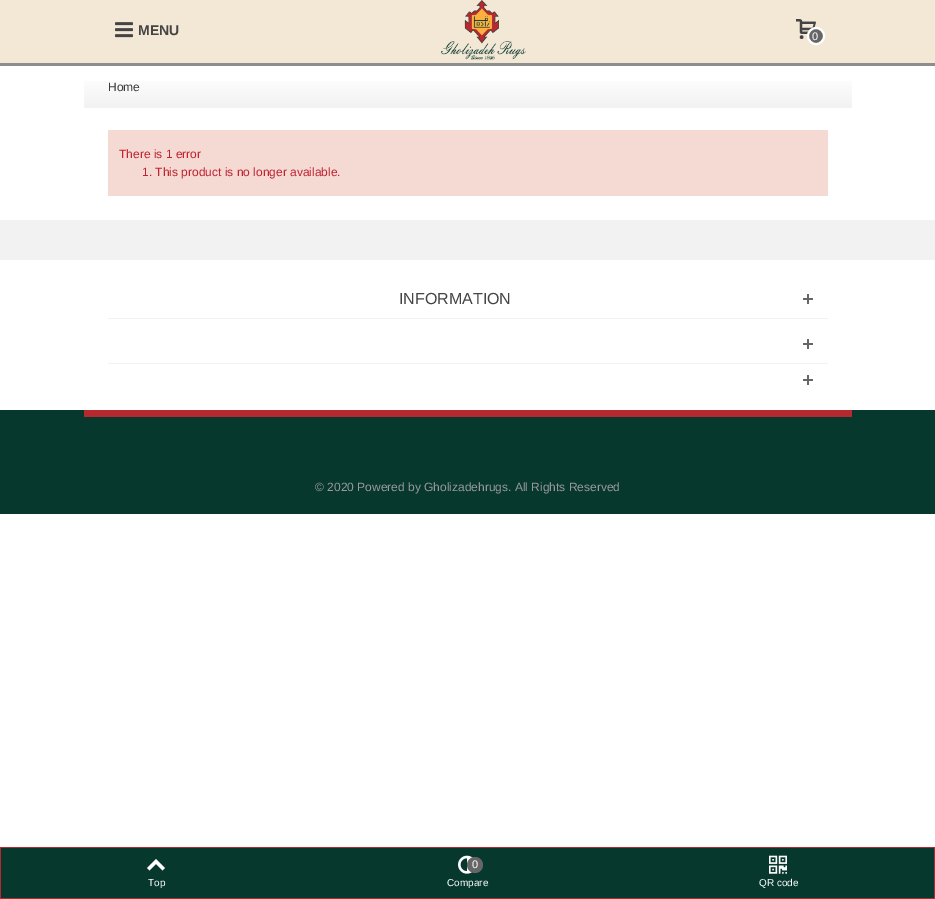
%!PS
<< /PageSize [935 899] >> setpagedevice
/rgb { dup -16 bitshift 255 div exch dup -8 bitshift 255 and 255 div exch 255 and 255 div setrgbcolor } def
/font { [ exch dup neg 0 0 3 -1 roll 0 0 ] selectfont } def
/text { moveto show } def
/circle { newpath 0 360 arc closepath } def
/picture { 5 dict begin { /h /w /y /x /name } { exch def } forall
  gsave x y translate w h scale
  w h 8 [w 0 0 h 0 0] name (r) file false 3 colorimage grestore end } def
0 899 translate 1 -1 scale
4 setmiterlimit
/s1 { /LiberationSans-Bold 14 font 16#444444 rgb } def
/s2 { /LiberationSans-Regular 11 font 16#FFFFFF rgb } def
/s3 { /LiberationSans-Regular 12 font 16#3B3B3B rgb } def
/s4 { /LiberationSans-Regular 12 font 16#C02230 rgb } def
/s5 { /LiberationSans-Regular 16 font 16#444444 rgb } def
/s6 { /LiberationSans-Regular 12 font 16#999999 rgb } def
/s7 { /LiberationSans-Regular 10 font 16#FFFFFF rgb } def
16#FFFFFF rgb
0 0 935 899 rectfill
16#F3E7D5 rgb
0 0 935 63 rectfill
(pic1.raw) 115 22 18 16 picture
s1
(MENU) 138 35 text
(pic2.raw) 441 0 85 60 picture
(pic3.raw) 796 19 20 20 picture
16#666666 rgb
816 36 8 circle gsave fill grestore
16#FFFFFF rgb
2 setlinewidth
stroke
s2
(0) 812 40 text
16#8D8D8D rgb
0 63 935 3 rectfill
gsave 84 81 moveto 852 81 lineto 852 108 lineto 84 108 lineto closepath clip newpath
<< /ShadingType 2 /ColorSpace /DeviceRGB /Coords [468 66 468 108] /Extend [true true] /Function << /FunctionType 3 /Domain [0 1] /Functions [<< /FunctionType 2 /Domain [0 1] /C0 [1 1 1] /C1 [1 1 1] /N 1 >> << /FunctionType 2 /Domain [0 1] /C0 [1 1 1] /C1 [0.949 0.949 0.949] /N 1 >>] /Bounds [0.2] /Encode [0 1 0 1] >> >> shfill grestore
s3
(Home) 108 91 text
16#F5DAD3 rgb
108 130 720 66 rectfill
s4
(There is 1 error) 119 158 text
(1. This product is no longer available.) 142 176 text
16#F2F2F2 rgb
0 220 935 40 rectfill
108 318 720 1 rectfill
s5
(INFORMATION) 399 304 text
(pic4.raw) 803 294 10 10 picture
16#F2F2F2 rgb
108 363 720 1 rectfill
(pic4.raw) 803 339 10 10 picture
(pic4.raw) 803 375 10 10 picture
16#07382E rgb
0 410 935 104 rectfill
16#B6292F rgb
84 410 768 7 rectfill
s6
(© 2020 Powered by Gholizadehrugs. All Rights Reserved) 315 491 text
16#B6292F rgb
1 setlinewidth
0.5 847.5 934 51 rectstroke
16#07382E rgb
1 848 933 50 rectfill
16#FFFFFF rgb
147 868 moveto 156 859 lineto 165 868 lineto 162.5 870.5 lineto 156 864 lineto 149.5 870.5 lineto closepath fill
s7
(Top) 148 886 text
(pic5.raw) 458 855 15 19 picture
16#666666 rgb
475 865 8 circle fill
s2
(0) 472 868 text
s7
(Compare) 447 886 text
(pic6.raw) 769 855 18 19 picture
(QR code) 759 886 text
showpage
